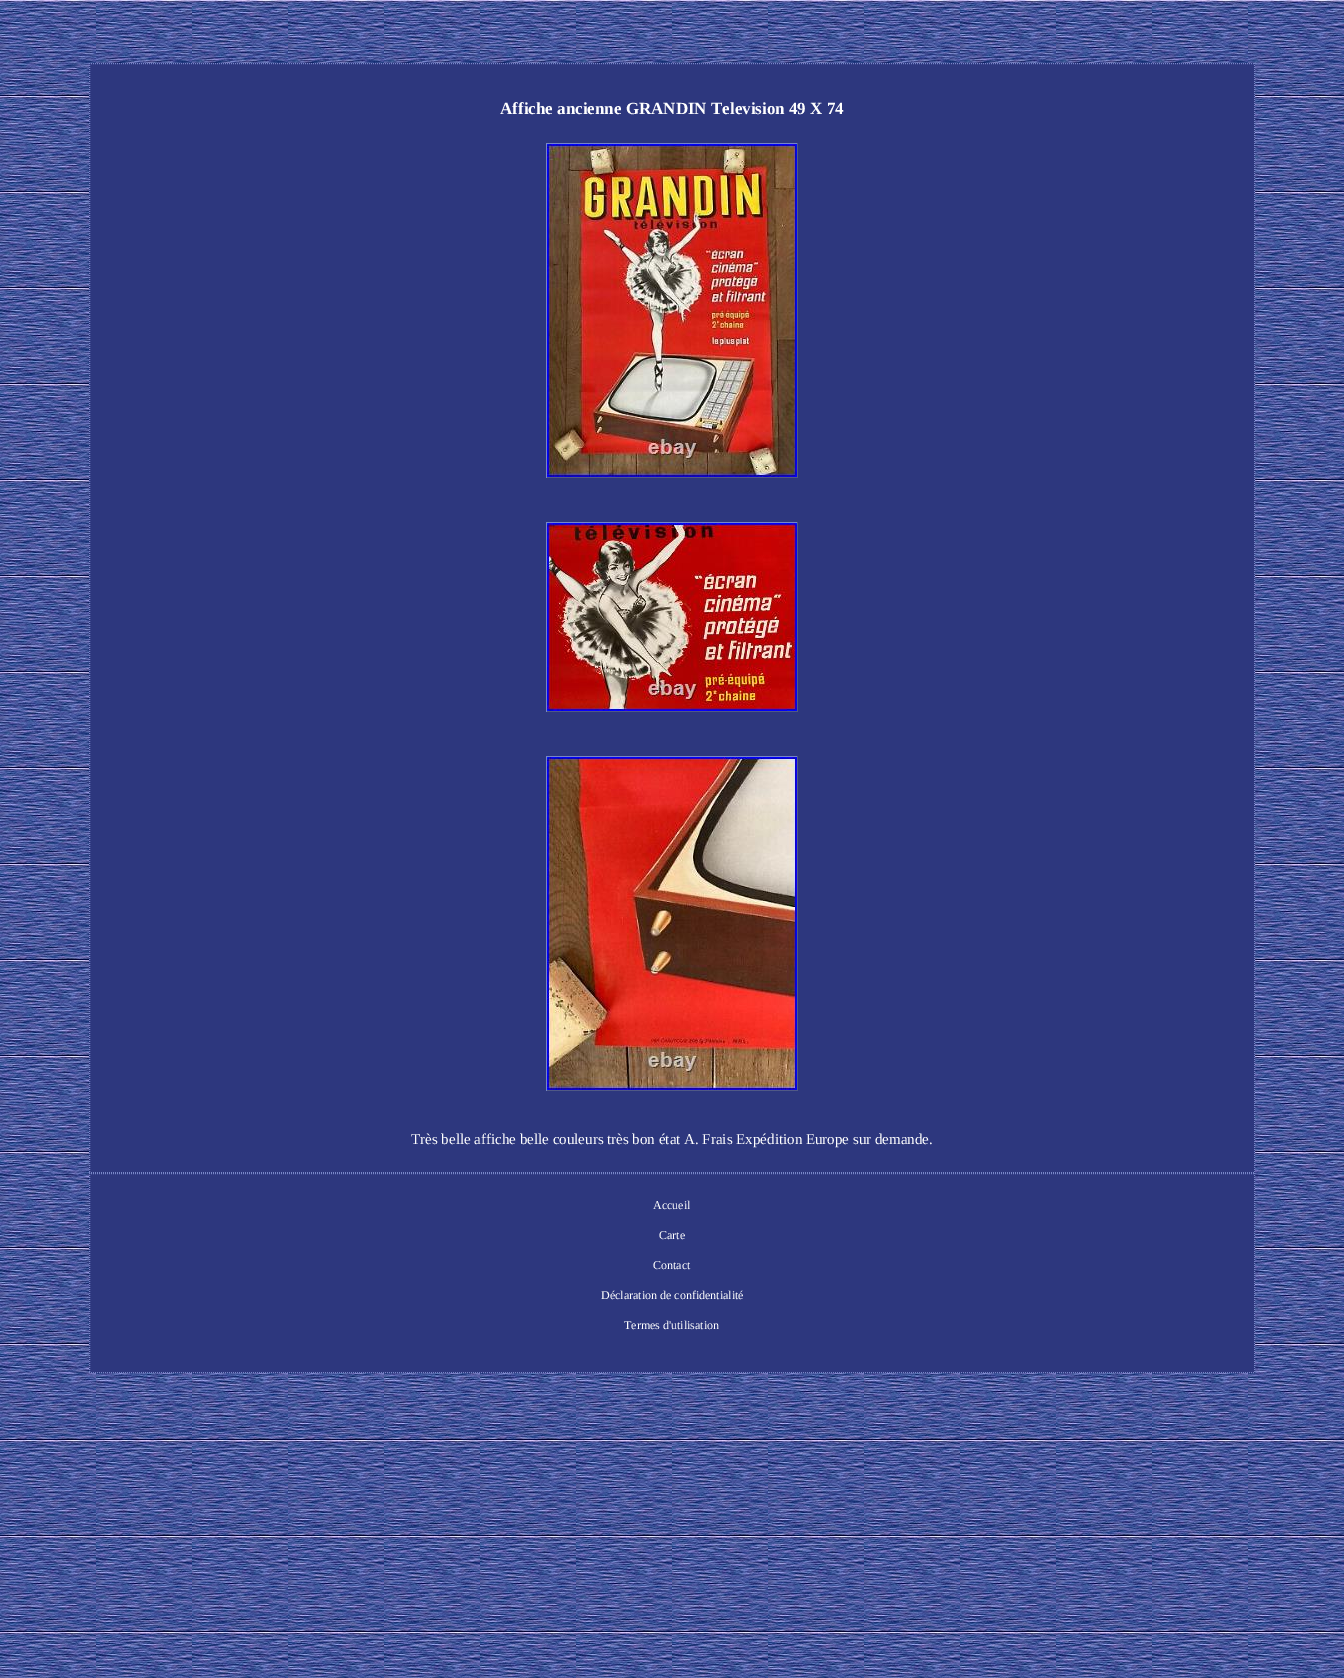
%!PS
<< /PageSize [1344 1678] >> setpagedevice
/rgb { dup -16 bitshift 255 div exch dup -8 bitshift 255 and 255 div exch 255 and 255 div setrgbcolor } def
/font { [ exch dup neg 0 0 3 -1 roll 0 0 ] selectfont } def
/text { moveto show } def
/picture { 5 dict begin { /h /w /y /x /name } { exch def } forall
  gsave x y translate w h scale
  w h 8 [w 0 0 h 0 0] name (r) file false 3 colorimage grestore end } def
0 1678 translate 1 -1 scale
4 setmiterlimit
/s1 { /LiberationSerif-Bold 17 font 16#FFFFFF rgb } def
/s2 { /LiberationSerif-Regular 15 font 16#FFFFFF rgb } def
/s3 { /LiberationSerif-Regular 12 font 16#FFFFFF rgb } def
16#FFFFFF rgb
0 0 1344 1678 rectfill
(pic1.raw) 0 0 1344 1678 picture
16#2D377E rgb
89 63 1166 1310 rectfill
16#7886C7 rgb
[1 1] 0 setdash
89 63.5 moveto 1255 63.5 lineto stroke
1254.5 63 moveto 1254.5 1173 lineto stroke
89 1172.5 moveto 1255 1172.5 lineto stroke
89.5 63 moveto 89.5 1173 lineto stroke
s1
(Affiche ancienne GRANDIN Television 49 X 74) 500 114 text
16#7886C7 rgb
546 143 252 1 rectfill
16#505985 rgb
797 143 1 335 rectfill
546 477 252 1 rectfill
16#7886C7 rgb
546 143 1 335 rectfill
(pic2.raw) 547 144 250 333 picture
546 522 252 1 rectfill
16#505985 rgb
797 522 1 190 rectfill
546 711 252 1 rectfill
16#7886C7 rgb
546 522 1 190 rectfill
(pic3.raw) 547 523 250 188 picture
546 756 252 1 rectfill
16#505985 rgb
797 756 1 335 rectfill
546 1090 252 1 rectfill
16#7886C7 rgb
546 756 1 335 rectfill
(pic4.raw) 547 757 250 333 picture
s2
(Très belle affiche belle couleurs très bon état A. Frais Expédition Europe sur demande.) 411 1144 text
16#7886C7 rgb
89 1173.5 moveto 1255 1173.5 lineto stroke
1254.5 1173 moveto 1254.5 1373 lineto stroke
89 1372.5 moveto 1255 1372.5 lineto stroke
89.5 1173 moveto 89.5 1373 lineto stroke
s3
(Accueil) 653 1209 text
(Carte) 659 1239 text
(Contact) 653 1269 text
(Déclaration de confidentialité) 601 1299 text
(Termes d'utilisation) 624 1329 text
showpage
